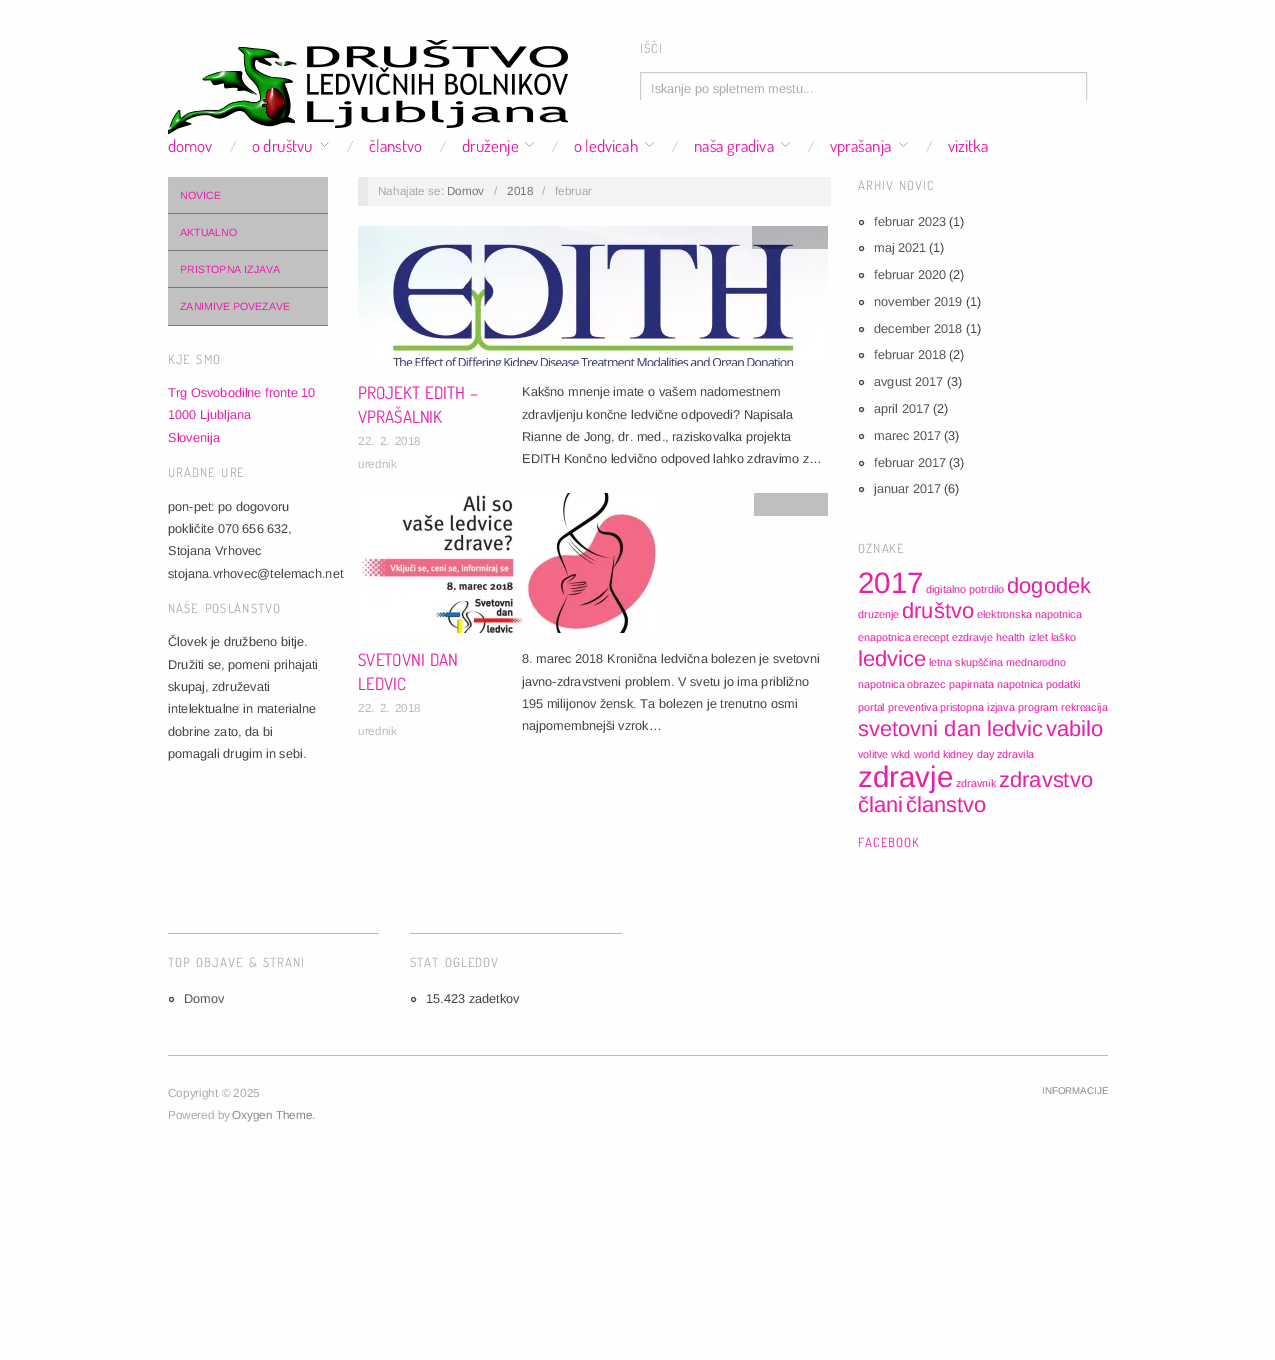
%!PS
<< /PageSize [1275 1360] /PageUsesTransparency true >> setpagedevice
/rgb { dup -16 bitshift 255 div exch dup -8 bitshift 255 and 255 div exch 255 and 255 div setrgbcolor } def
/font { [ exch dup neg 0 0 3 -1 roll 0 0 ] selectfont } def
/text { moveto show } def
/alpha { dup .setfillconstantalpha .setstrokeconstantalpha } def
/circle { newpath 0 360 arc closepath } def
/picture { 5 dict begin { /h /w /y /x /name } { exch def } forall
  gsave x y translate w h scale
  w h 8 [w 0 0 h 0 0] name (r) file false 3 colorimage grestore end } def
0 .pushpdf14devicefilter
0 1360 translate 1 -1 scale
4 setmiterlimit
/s1 { /LiberationSans-Regular 12.75 font 16#AAAAAA rgb } def
/s2 { /Dosis-Regular 17 font 16#EB1CA9 rgb } def
/s3 { /LiberationSans-Regular 10.6 font 16#EB1CA9 rgb } def
/s4 { /LiberationSans-Regular 12.75 font 16#EB1CA9 rgb } def
/s5 { /LiberationSans-Regular 12.75 font 16#444444 rgb } def
/s6 { /LiberationSans-Regular 11.75 font 16#AAAAAA rgb } def
/s7 { /LiberationSans-Regular 11.75 font 16#777777 rgb } def
/s8 { /LiberationSans-Regular 11.75 font 16#BBBBBB rgb } def
/s9 { /LiberationSans-Regular 12.75 font 16#555555 rgb } def
/s10 { /LiberationSans-Regular 29.5 font 16#EB1CA9 rgb } def
/s11 { /LiberationSans-Regular 10.75 font 16#EB1CA9 rgb } def
/s12 { /LiberationSans-Regular 21.9 font 16#EB1CA9 rgb } def
/s13 { /LiberationSans-Regular 11.75 font 16#888888 rgb } def
/s14 { /LiberationSans-Regular 9.75 font 16#888888 rgb } def
16#FEFEFE rgb
0 0 1275 1360 rectfill
(pic1.raw) 168 40 400 94 picture
/Dosis-Regular 12.75 font
16#AAAAAA rgb
640 53 moveto 1 0 (IŠČI) ashow
gsave
640 72 468 28 rectclip
16#CCCCCC rgb
640.5 72.5 446 32 rectstroke
grestore
s1
(Iskanje po spletnem mestu...) 651 93 text
s2
(domov) 168 152 text
(pic2.raw) 229 140 8 13 picture
(pic3.raw) 320 142 9 5 picture
(o društvu) 252 152 text
(pic2.raw) 346 140 8 13 picture
(članstvo) 369 152 text
(pic2.raw) 439 140 8 13 picture
(pic3.raw) 525 142 9 5 picture
(druženje) 462 152 text
(pic2.raw) 551 140 8 13 picture
(pic3.raw) 645 142 9 5 picture
(o ledvicah) 574 152 text
(pic2.raw) 671 140 8 13 picture
(pic3.raw) 781 142 9 5 picture
(naša gradiva) 694 152 text
(pic2.raw) 807 140 8 13 picture
(pic3.raw) 899 142 9 5 picture
(vprašanja) 830 152 text
(pic2.raw) 925 140 8 13 picture
(vizitka) 948 152 text
16#C1C1C1 rgb
168 177 160 36 rectfill
16#777777 rgb
168 213 160 1 rectfill
s3
(NOVICE) 180 199 text
16#C1C1C1 rgb
168 214 160 36 rectfill
16#777777 rgb
168 250 160 1 rectfill
s3
(AKTUALNO) 180 236 text
16#C1C1C1 rgb
168 251 160 36 rectfill
16#777777 rgb
168 287 160 1 rectfill
s3
(PRISTOPNA IZJAVA) 180 273 text
16#C1C1C1 rgb
168 288 160 37 rectfill
16#777777 rgb
168 325 160 1 rectfill
s3
(ZANIMIVE POVEZAVE) 180 310 text
/Dosis-Regular 12.75 font
16#AAAAAA rgb
168 364 moveto 2 0 32 1 0 (KJE SMO) awidthshow
s4
(Trg Osvobodilne fronte 10) 168 397 text
(1000 Ljubljana) 168 419 text
(Slovenija) 168 442 text
/Dosis-Regular 12.75 font
16#AAAAAA rgb
168 477 moveto 2 0 32 1 0 (URADNE URE) awidthshow
s5
(pon-pet: po dogovoru) 168 511 text
(pokličite 070 656 632,) 168 533 text
(Stojana Vrhovec) 168 555 text
(stojana.vrhovec@telemach.net) 168 578 text
/Dosis-Regular 12.75 font
16#AAAAAA rgb
168 613 moveto 2 0 32 1 0 (NAŠE POSLANSTVO) awidthshow
s5
(Človek je družbeno bitje.) 168 646 text
(Družiti se, pomeni prihajati) 168 669 text
(skupaj, združevati) 168 691 text
(intelektualne in materialne) 168 713 text
(dobrine zato, da bi) 168 736 text
(pomagali drugim in sebi.) 168 758 text
16#F3F3F3 rgb
368 177 463 29 rectfill
16#E9E9E9 rgb
358 177 10 29 rectfill
s6
(Nahajate se:) 378 195 text
s7
(Domov) 447 195 text
s6
(/) 494 195 text
s7
(2018) 507 195 text
s6
(/) 542 195 text
(februar) 555 195 text
(pic4.raw) 358 226 470 140 picture
0.25 alpha
16#000000 rgb
752 226 76 23 rectfill
/Dosis-Regular 17 font
1 alpha
16#EB1CA9 rgb
358 399 moveto 2 0 32 (PROJEKT EDITH –) widthshow
(VPRAŠALNIK) 358 423 text
/LiberationSans-Regular 11.75 font
16#BBBBBB rgb
358 445 moveto 2 0 32 (22. 2. 2018) widthshow
(urednik) 358 468 text
s5
(Kakšno mnenje imate o vašem nadomestnem) 522 396 text
(zdravljenju končne ledvične odpovedi? Napisala) 522 419 text
(Rianne de Jong, dr. med., raziskovalka projekta) 522 441 text
(EDITH Končno ledvično odpoved lahko zdravimo z…) 522 463 text
(pic5.raw) 358 493 304 140 picture
16#BFBFBF rgb
754 493 74 23 rectfill
/Dosis-Regular 17 font
16#EB1CA9 rgb
358 666 moveto 2 0 32 (SVETOVNI DAN) widthshow
(LEDVIC) 358 690 text
/LiberationSans-Regular 11.75 font
16#BBBBBB rgb
358 712 moveto 2 0 32 (22. 2. 2018) widthshow
(urednik) 358 735 text
s5
(8. marec 2018 Kronična ledvična bolezen je svetovni) 522 663 text
(javno-zdravstveni problem. V svetu jo ima približno) 522 686 text
(195 milijonov žensk. Ta bolezen je trenutno osmi) 522 708 text
(najpomembnejši vzrok…) 522 730 text
/Dosis-Regular 12.75 font
16#AAAAAA rgb
858 190 moveto 2 0 32 1 0 (ARHIV NOVIC) awidthshow
16#444444 rgb
861.5 222.5 2 circle stroke
s9
(februar 2023) 874 226 text
s5
(\(1\)) 949 226 text
861.5 248.5 2 circle stroke
s9
(maj 2021) 874 252 text
s5
(\(1\)) 929 252 text
861.5 275.5 2 circle stroke
s9
(februar 2020) 874 279 text
s5
(\(2\)) 949 279 text
861.5 302.5 2 circle stroke
s9
(november 2019) 874 306 text
s5
(\(1\)) 966 306 text
861.5 329.5 2 circle stroke
s9
(december 2018) 874 333 text
s5
(\(1\)) 966 333 text
861.5 355.5 2 circle stroke
s9
(februar 2018) 874 359 text
s5
(\(2\)) 949 359 text
861.5 382.5 2 circle stroke
s9
(avgust 2017) 874 386 text
s5
(\(3\)) 947 386 text
861.5 409.5 2 circle stroke
s9
(april 2017) 874 413 text
s5
(\(2\)) 933 413 text
861.5 436.5 2 circle stroke
s9
(marec 2017) 874 440 text
s5
(\(3\)) 944 440 text
861.5 463.5 2 circle stroke
s9
(februar 2017) 874 467 text
s5
(\(3\)) 949 467 text
861.5 489.5 2 circle stroke
s9
(januar 2017) 874 493 text
s5
(\(6\)) 944 493 text
/Dosis-Regular 12.75 font
16#AAAAAA rgb
858 553 moveto 1 0 (OZNAKE) ashow
s10
(2017) 858 593 text
s11
(digitalno potrdilo) 926 593 text
s12
(dogodek) 1007 593 text
s11
(druzenje) 858 618 text
s12
(društvo) 902 618 text
s11
(elektronska napotnica) 977 618 text
(enapotnica) 858 641 text
(erecept) 913 641 text
(ezdravje) 952 641 text
(health) 996 641 text
(izlet) 1029 641 text
(laško) 1051 641 text
s12
(ledvice) 858 666 text
s11
(letna skupščina) 929 666 text
(mednarodno) 1006 666 text
(napotnica) 858 688 text
(obrazec) 907 688 text
(papirnata napotnica) 949 688 text
(podatki) 1046 688 text
(portal) 858 711 text
(preventiva) 888 711 text
(pristopna izjava) 940 711 text
(program) 1018 711 text
(rekreacija) 1061 711 text
s12
(svetovni dan ledvic) 858 736 text
(vabilo) 1046 736 text
s11
(volitve) 858 758 text
(wkd) 891 758 text
(world kidney day) 914 758 text
(zdravila) 997 758 text
s10
(zdravje) 858 787 text
s11
(zdravnik) 956 787 text
s12
(zdravstvo) 999 787 text
(člani) 858 812 text
(članstvo) 906 812 text
/Dosis-Regular 12.75 font
858 847 moveto 1 0 (FACEBOOK) ashow
16#BBBBBB rgb
168 933 211 1 rectfill
16#AAAAAA rgb
168 967 moveto 2 0 32 1 0 (TOP OBJAVE & STRANI) awidthshow
16#444444 rgb
171.5 999.5 2 circle stroke
s9
(Domov) 184 1003 text
16#BBBBBB rgb
410 933 212 1 rectfill
/Dosis-Regular 12.75 font
16#AAAAAA rgb
410 967 moveto 2 0 32 1 0 (STAT OGLEDOV) awidthshow
16#444444 rgb
413.5 999.5 2 circle stroke
s5
(15.423 zadetkov) 426 1003 text
16#BBBBBB rgb
168 1055 940 1 rectfill
s6
(Copyright © 2025) 168 1097 text
(Powered by) 168 1119 text
s13
(Oxygen Theme) 232 1119 text
s6
(.) 312 1119 text
s14
(INFORMACIJE) 1042 1094 text
.poppdf14devicefilter showpage
